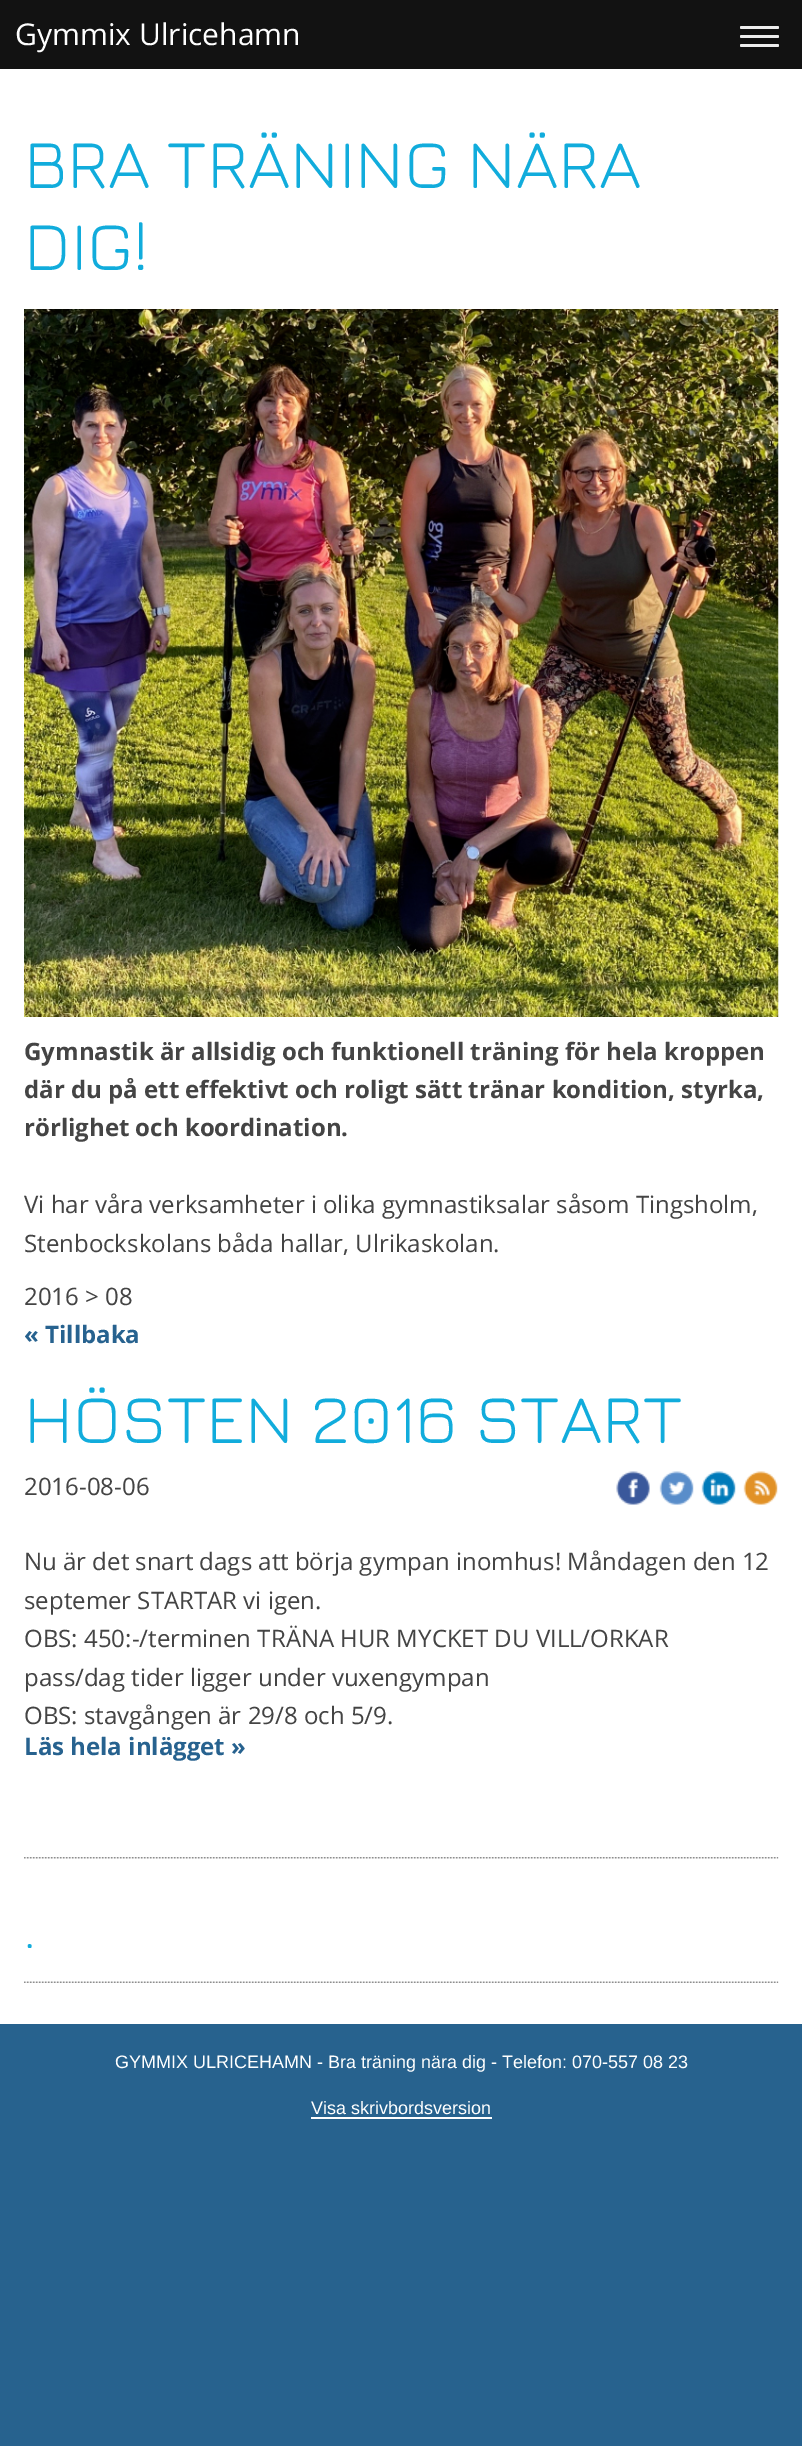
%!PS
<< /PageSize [802 2446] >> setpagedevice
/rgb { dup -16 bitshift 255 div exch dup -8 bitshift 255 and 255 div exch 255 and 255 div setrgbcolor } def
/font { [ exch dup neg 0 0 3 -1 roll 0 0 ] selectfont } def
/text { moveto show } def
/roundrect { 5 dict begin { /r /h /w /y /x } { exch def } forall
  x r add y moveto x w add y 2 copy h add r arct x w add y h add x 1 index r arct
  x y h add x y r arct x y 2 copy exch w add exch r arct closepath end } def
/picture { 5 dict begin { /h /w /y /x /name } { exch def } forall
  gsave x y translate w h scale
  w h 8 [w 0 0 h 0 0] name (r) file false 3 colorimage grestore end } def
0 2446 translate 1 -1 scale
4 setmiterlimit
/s1 { /OpenSans-Regular 30 font 16#FFFFFF rgb } def
/s2 { /Jura-Light 69 font 16#11ACDC rgb } def
/s3 { /OpenSans-Bold 24 font 16#444444 rgb } def
/s4 { /OpenSans-Regular 24 font 16#444444 rgb } def
/s5 { /OpenSans-Bold 24 font 16#27628F rgb } def
/s6 { /Jura-Light 51 font 16#11ACDC rgb } def
/s7 { /LiberationSans-Regular 18 font 16#FFFFFF rgb } def
16#27628E rgb
0 0 802 2446 rectfill
16#121212 rgb
0 0 802 69 rectfill
s1
(Gymmix Ulricehamn) 15 45 text
16#EEEEEE rgb
740 26 39 3 1.5 roundrect fill
740 35 39 3 1.5 roundrect fill
740 44 39 3 1.5 roundrect fill
16#FFFFFF rgb
0 69 802 1955 rectfill
s2
(BRA TRÄNING NÄRA) 24 188 text
(DIG!) 24 270 text
(pic1.raw) 24 309 755 708 picture
s3
(Gymnastik är allsidig och funktionell träning för hela kroppen) 24 1060 text
(där du på ett effektivt och roligt sätt tränar kondition, styrka,) 24 1098 text
(rörlighet och koordination.) 24 1136 text
s4
(Vi har våra verksamheter i olika gymnastiksalar såsom Tingsholm,) 24 1213 text
(Stenbockskolans båda hallar, Ulrikaskolan.) 24 1252 text
(2016 > 08) 24 1305 text
s5
(« Tillbaka) 24 1343 text
s2
(HÖSTEN 2016 START) 24 1443 text
s4
(2016-08-06) 24 1495 text
(pic2.raw) 616 1471 34 34 picture
(pic3.raw) 659 1471 35 34 picture
(pic4.raw) 701 1471 35 34 picture
(pic5.raw) 743 1471 35 34 picture
(Nu är det snart dags att börja gympan inomhus! Måndagen den 12) 24 1570 text
(septemer STARTAR vi igen.) 24 1609 text
(OBS: 450:-/terminen TRÄNA HUR MYCKET DU VILL/ORKAR) 24 1647 text
(pass/dag tider ligger under vuxengympan) 24 1686 text
(OBS: stavgången är 29/8 och 5/9.) 24 1724 text
s5
(Läs hela inlägget ») 24 1755 text
(pic6.raw) 24 1857 755 2 picture
s6
(.) 24 1948 text
(pic7.raw) 24 1981 755 2 picture
s7
(GYMMIX ULRICEHAMN - Bra träning nära dig - Telefon: 070-557 08 23) 115 2068 text
(Visa skrivbordsversion) 311 2114 text
311 2117 181 2 rectfill
showpage
